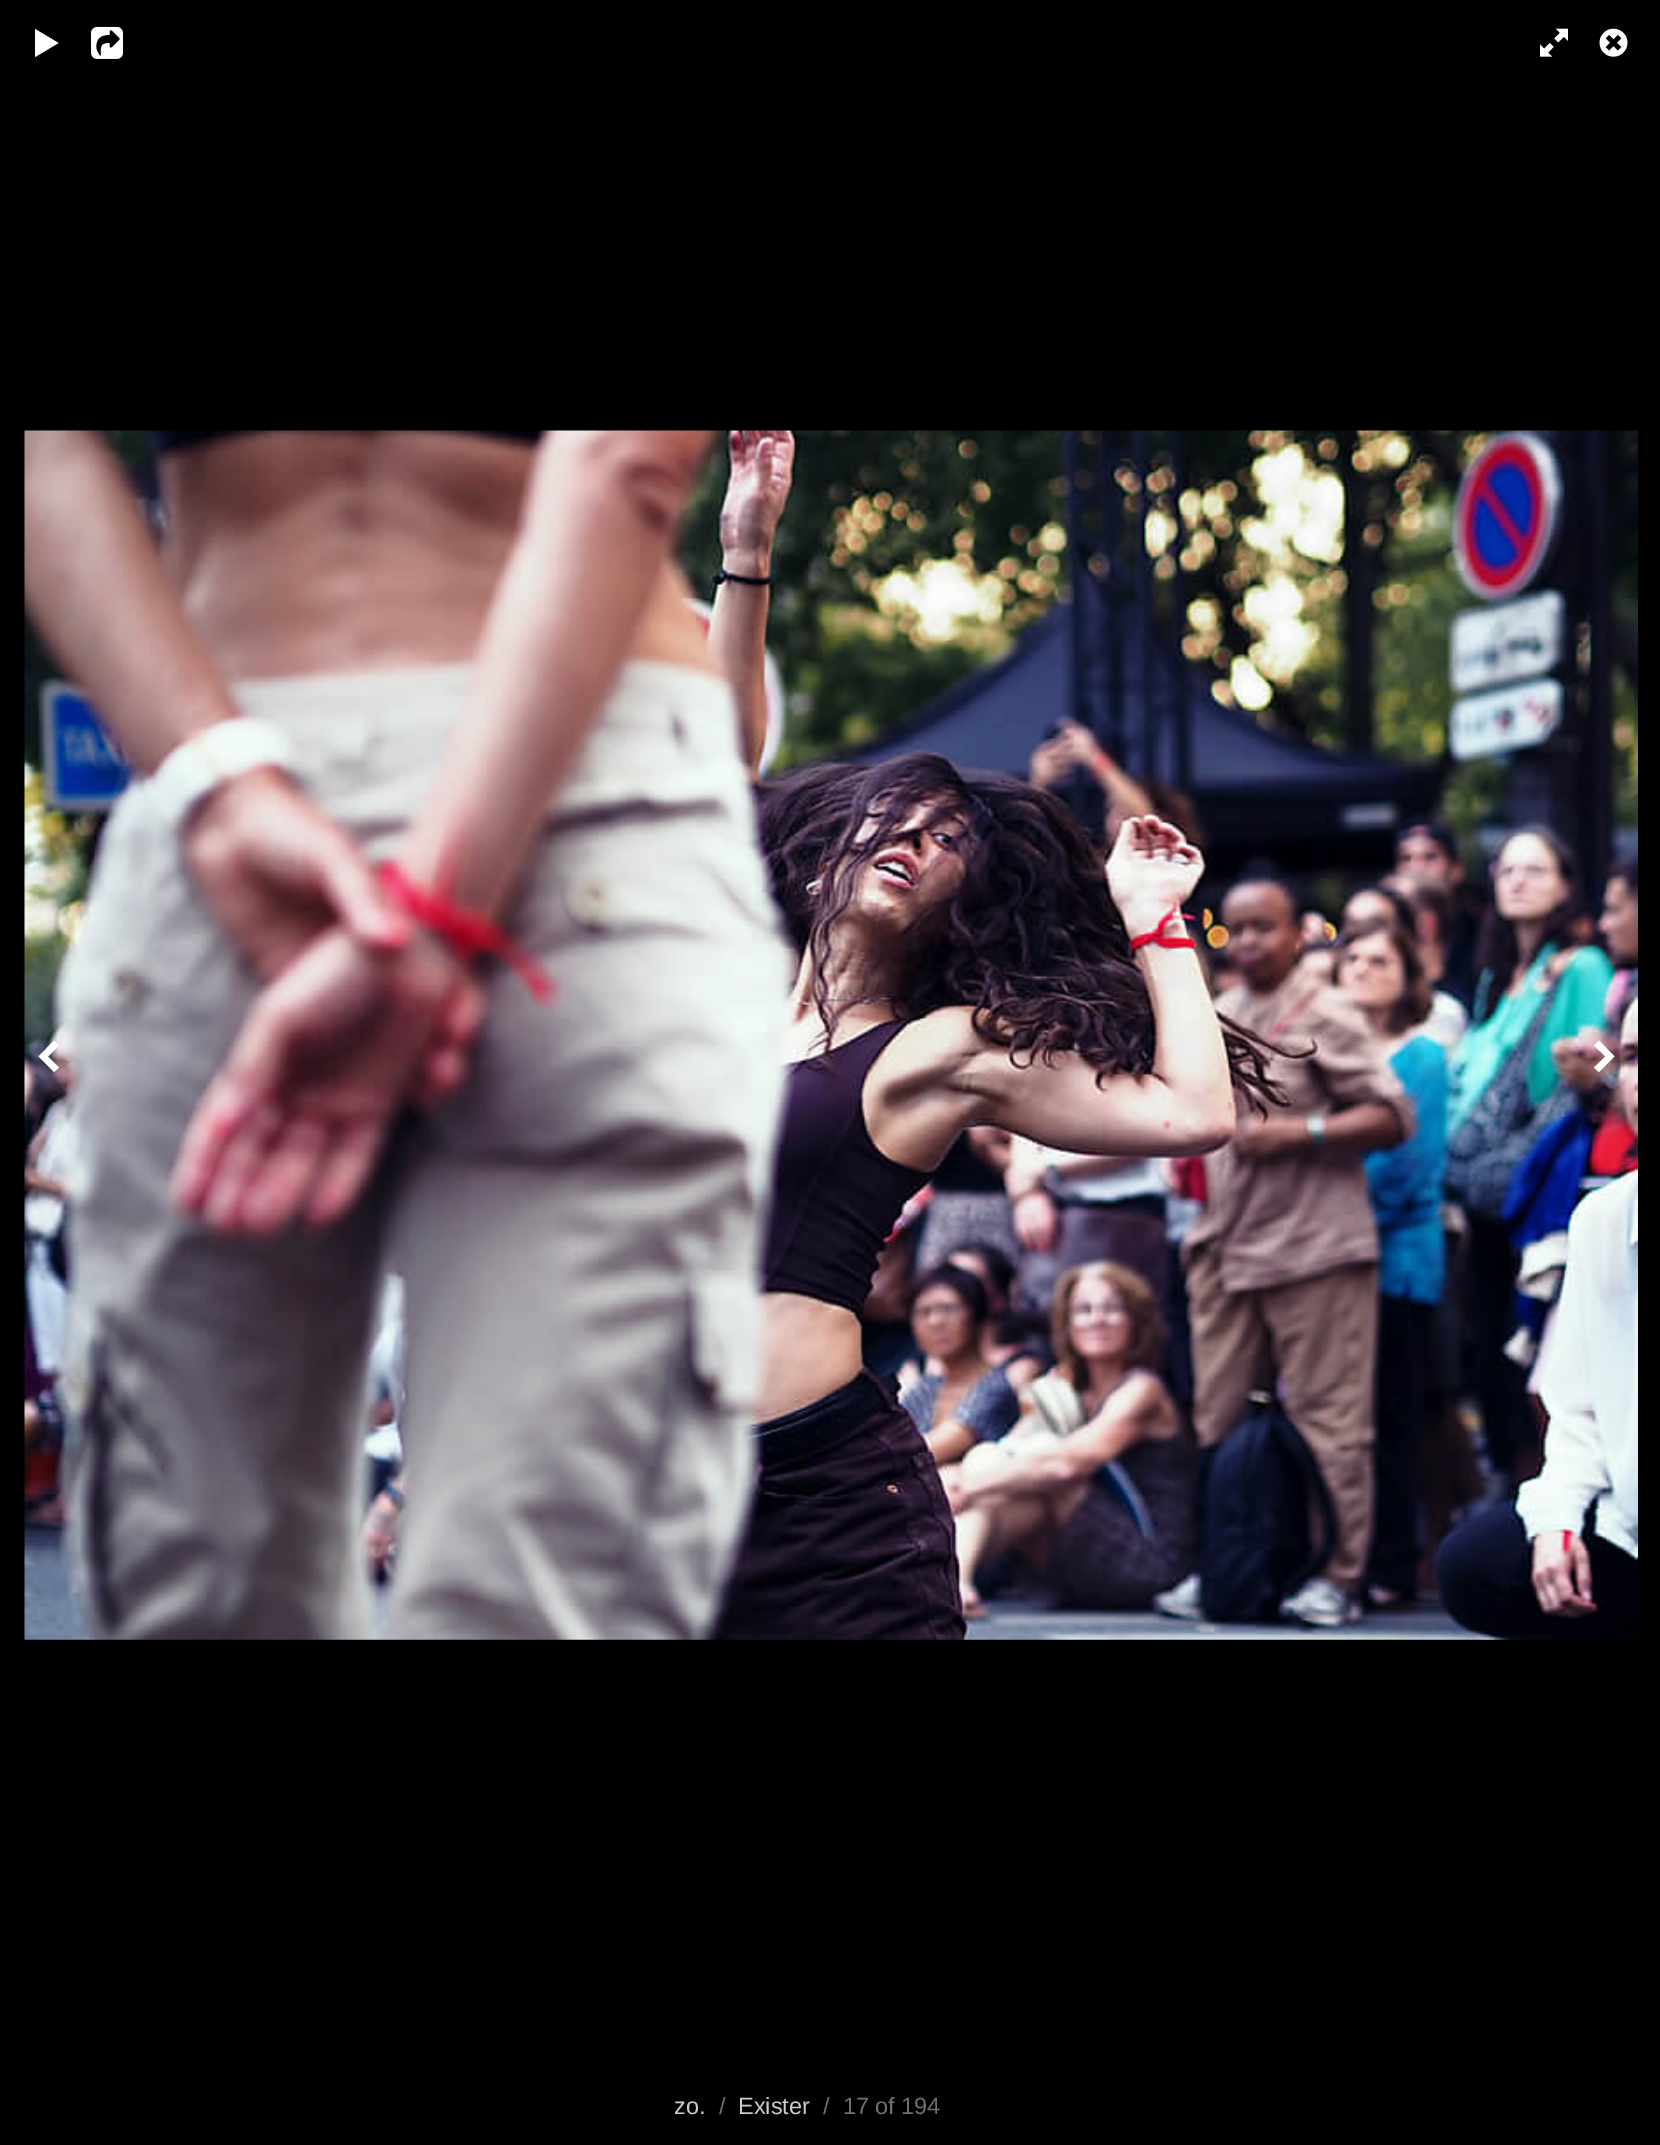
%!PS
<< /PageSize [1660 2145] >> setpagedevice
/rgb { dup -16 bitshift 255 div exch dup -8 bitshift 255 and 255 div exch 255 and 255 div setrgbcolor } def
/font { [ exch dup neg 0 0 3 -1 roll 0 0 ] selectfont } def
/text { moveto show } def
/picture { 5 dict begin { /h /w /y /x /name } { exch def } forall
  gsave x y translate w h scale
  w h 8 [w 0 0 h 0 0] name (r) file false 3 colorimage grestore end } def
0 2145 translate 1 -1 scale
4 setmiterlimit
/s1 { /LiberationSans-Regular 23.5 font 16#CCCCCC rgb } def
/s2 { /LiberationSans-Regular 23.5 font 16#707070 rgb } def
16#000000 rgb
0 0 1660 2145 rectfill
16#FFFFFF rgb
35 57 moveto 35 29 lineto 58.5 43 lineto closepath fill
(pic1.raw) 91 26 32 33 picture
(pic2.raw) 1540 28 28 29 picture
(pic3.raw) 1599 28 29 29 picture
(pic4.raw) 24 430 1614 1210 picture
38.5 1056.5 moveto 54 1040.5 lineto 59 1045.5 lineto 48 1056.5 lineto 59 1067.5 lineto 54 1072 lineto closepath fill
1594 1067.5 moveto 1605.5 1056.5 lineto 1594 1045.5 lineto 1599 1040.5 lineto 1614.5 1056.5 lineto 1599 1072 lineto closepath fill
s1
(zo.) 674 2114 text
s2
(/) 719 2114 text
s1
(Exister) 738 2114 text
s2
(/  17 of 194) 823 2114 text
showpage
